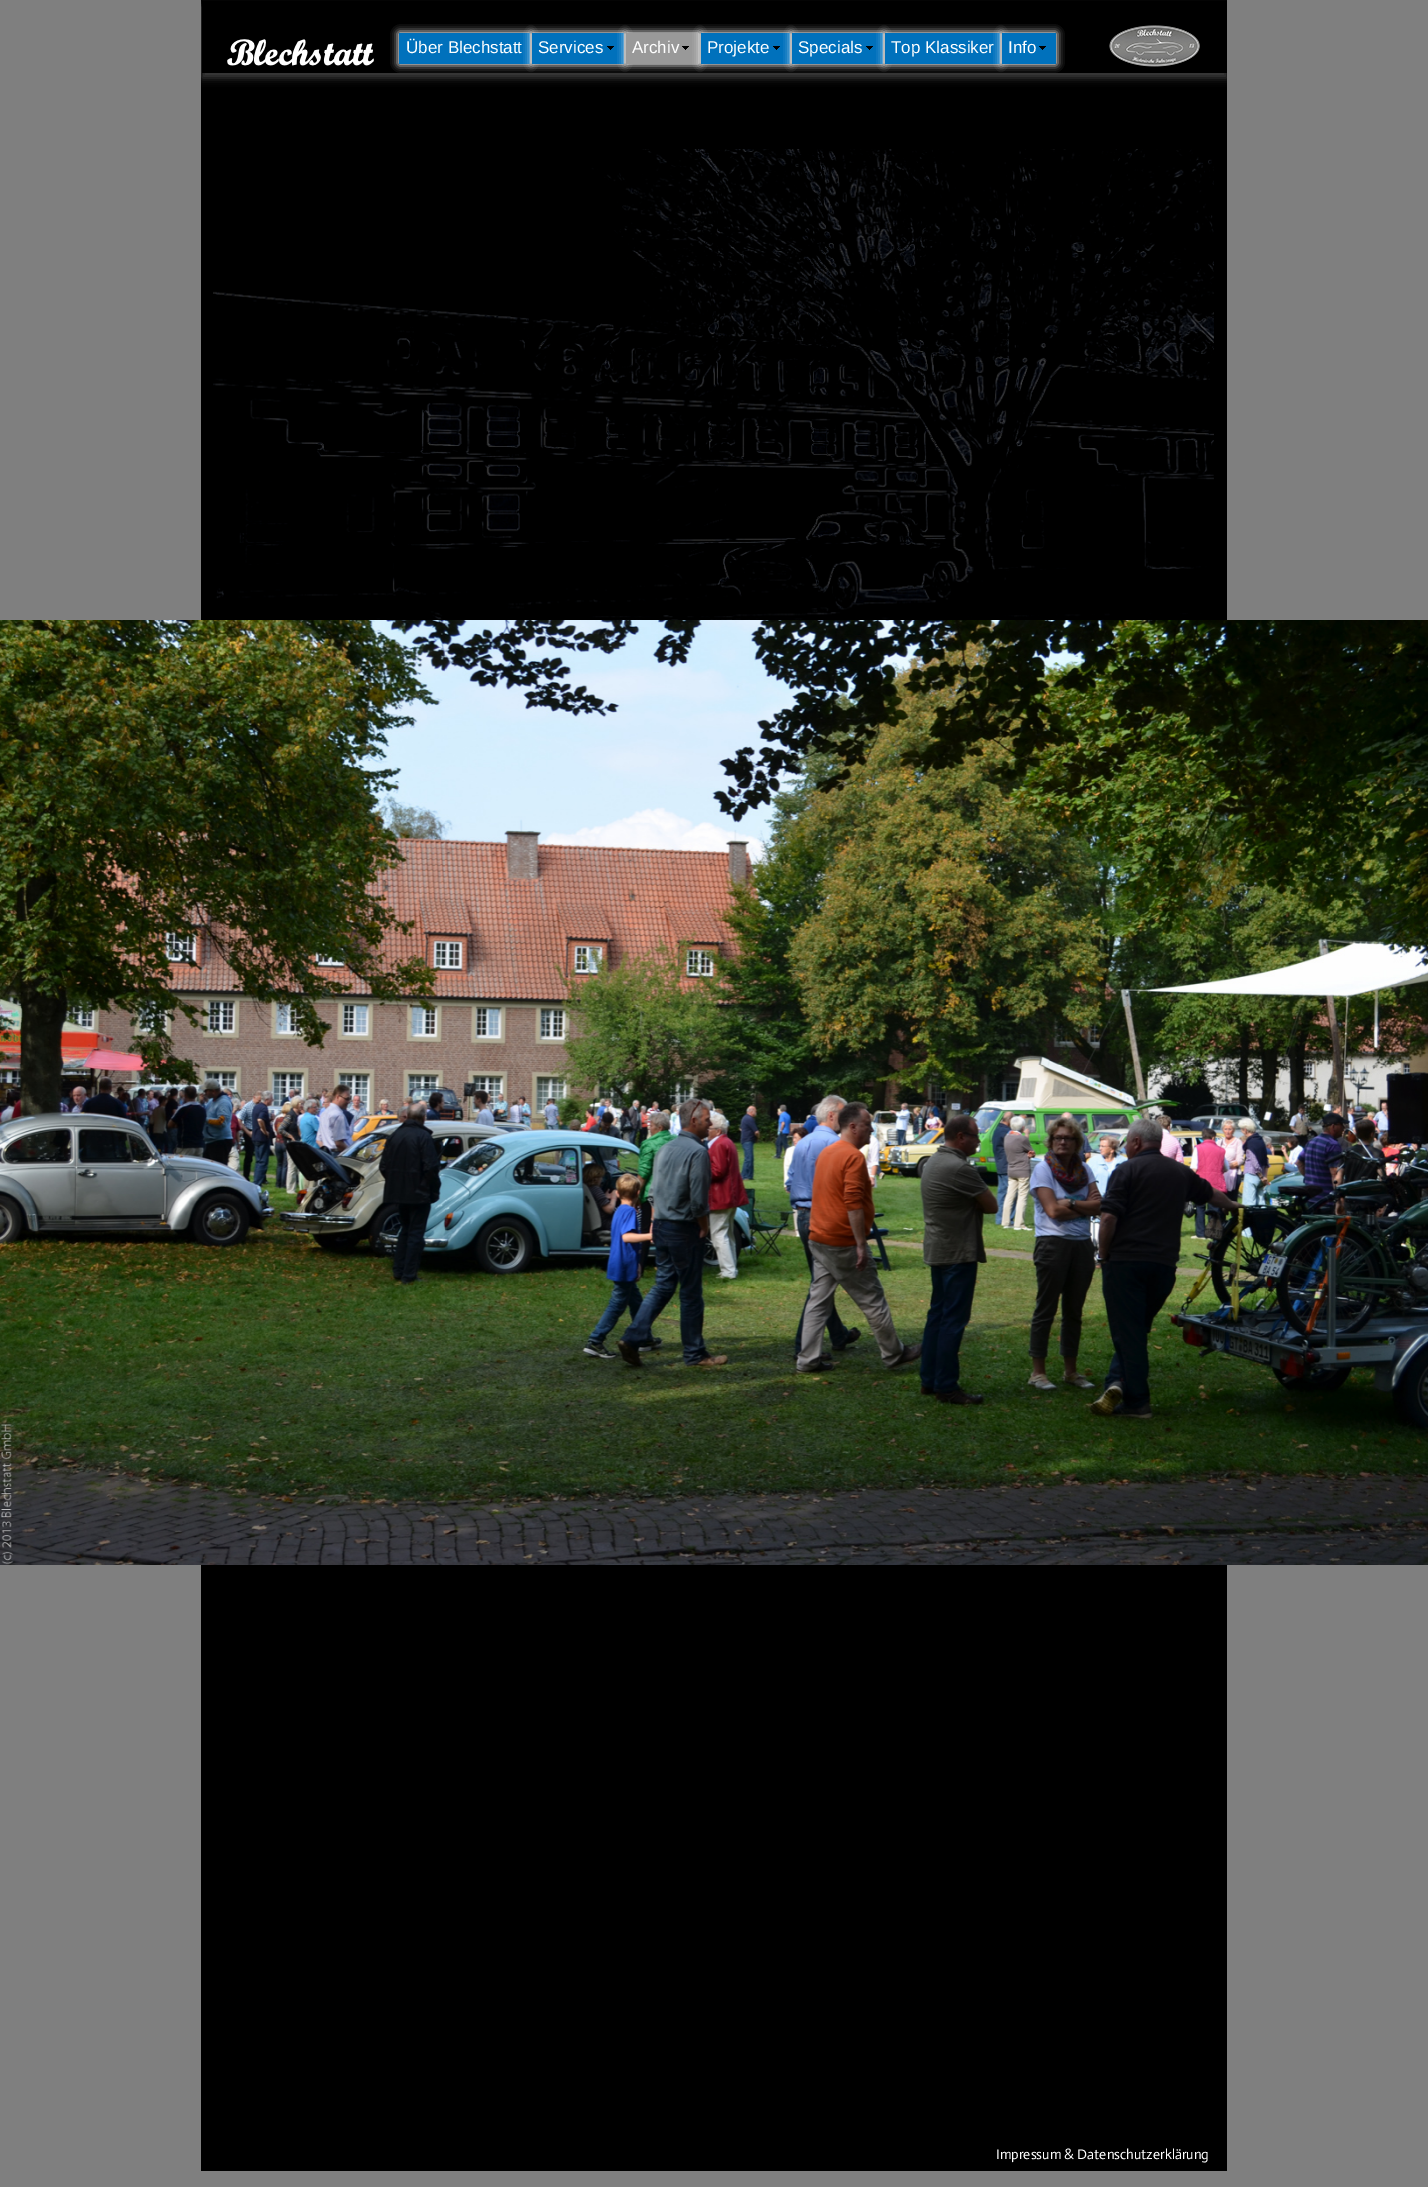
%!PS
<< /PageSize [1428 2187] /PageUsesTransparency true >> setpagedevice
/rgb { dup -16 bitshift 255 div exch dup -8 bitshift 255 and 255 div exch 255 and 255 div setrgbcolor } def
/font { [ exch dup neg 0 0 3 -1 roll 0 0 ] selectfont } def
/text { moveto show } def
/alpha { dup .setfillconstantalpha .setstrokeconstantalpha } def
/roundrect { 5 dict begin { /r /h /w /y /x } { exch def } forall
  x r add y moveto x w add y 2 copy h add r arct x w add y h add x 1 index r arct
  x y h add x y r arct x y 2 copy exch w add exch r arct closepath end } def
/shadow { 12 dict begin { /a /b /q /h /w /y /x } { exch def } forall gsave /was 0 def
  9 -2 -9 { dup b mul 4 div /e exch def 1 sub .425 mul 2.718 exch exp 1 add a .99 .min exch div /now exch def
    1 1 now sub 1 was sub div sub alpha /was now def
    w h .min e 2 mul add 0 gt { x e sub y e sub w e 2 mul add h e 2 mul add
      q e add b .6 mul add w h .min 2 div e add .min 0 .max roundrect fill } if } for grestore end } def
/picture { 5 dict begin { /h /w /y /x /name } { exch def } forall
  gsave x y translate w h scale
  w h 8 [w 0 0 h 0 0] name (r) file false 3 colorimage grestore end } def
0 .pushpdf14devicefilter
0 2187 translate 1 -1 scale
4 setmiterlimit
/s1 { /LiberationSans-Regular 17 font 16#FFFFFF rgb } def
/s2 { /Actor-Regular 14 font 16#FFFFFF rgb } def
16#7F7F7F rgb
0 0 1428 2187 rectfill
16#000000 rgb
201 0 1026 2171 rectfill
gsave
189 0 moveto 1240 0 lineto 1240 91 lineto 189 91 lineto closepath 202 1 moveto 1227 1 lineto 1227 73 lineto 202 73 lineto closepath eoclip newpath
16#7F7F7F rgb
202 6 1025 72 0 4 0.5 shadow
grestore
(pic1.raw) 0 620 1428 945 picture
(pic2.raw) 227 39 147 27 picture
16#FFFFFF rgb
399 33 131 31 0 4 0.7 shadow
399 33 131 31 0 4 0.7 shadow
16#0071BC rgb
399 33 131 31 rectfill
s1
(Über Blechstatt) 406 53 text
532 33 92 31 0 4 0.7 shadow
532 33 92 31 0 4 0.7 shadow
16#0071BC rgb
532 33 92 31 rectfill
s1
(Services) 538 53 text
626 33 73 31 0 4 0.7 shadow
626 33 73 31 0 4 0.7 shadow
(pic3.raw) 607 46 7 4 picture
16#999999 rgb
626 33 73 31 rectfill
s1
(Archiv) 632 53 text
701 33 89 31 0 4 0.7 shadow
701 33 89 31 0 4 0.7 shadow
(pic4.raw) 682 46 7 4 picture
16#0071BC rgb
701 33 89 31 rectfill
s1
(Projekte) 707 53 text
792 33 91 31 0 4 0.7 shadow
792 33 91 31 0 4 0.7 shadow
(pic3.raw) 773 46 7 4 picture
16#0071BC rgb
792 33 91 31 rectfill
s1
(Specials) 798 53 text
885 33 115 31 0 4 0.7 shadow
885 33 115 31 0 4 0.7 shadow
(pic3.raw) 866 46 7 4 picture
16#0071BC rgb
885 33 115 31 rectfill
s1
(Top Klassiker) 891 53 text
1002 33 54 31 0 4 0.7 shadow
1002 33 54 31 0 4 0.7 shadow
16#0071BC rgb
1002 33 54 31 rectfill
s1
(Info) 1008 53 text
(pic3.raw) 1039 46 7 4 picture
(pic5.raw) 1109 25 91 42 picture
(pic6.raw) 213 149 1001 471 picture
s2
(Impressum & Datenschutzerklärung) 996 2159 text
.poppdf14devicefilter showpage
